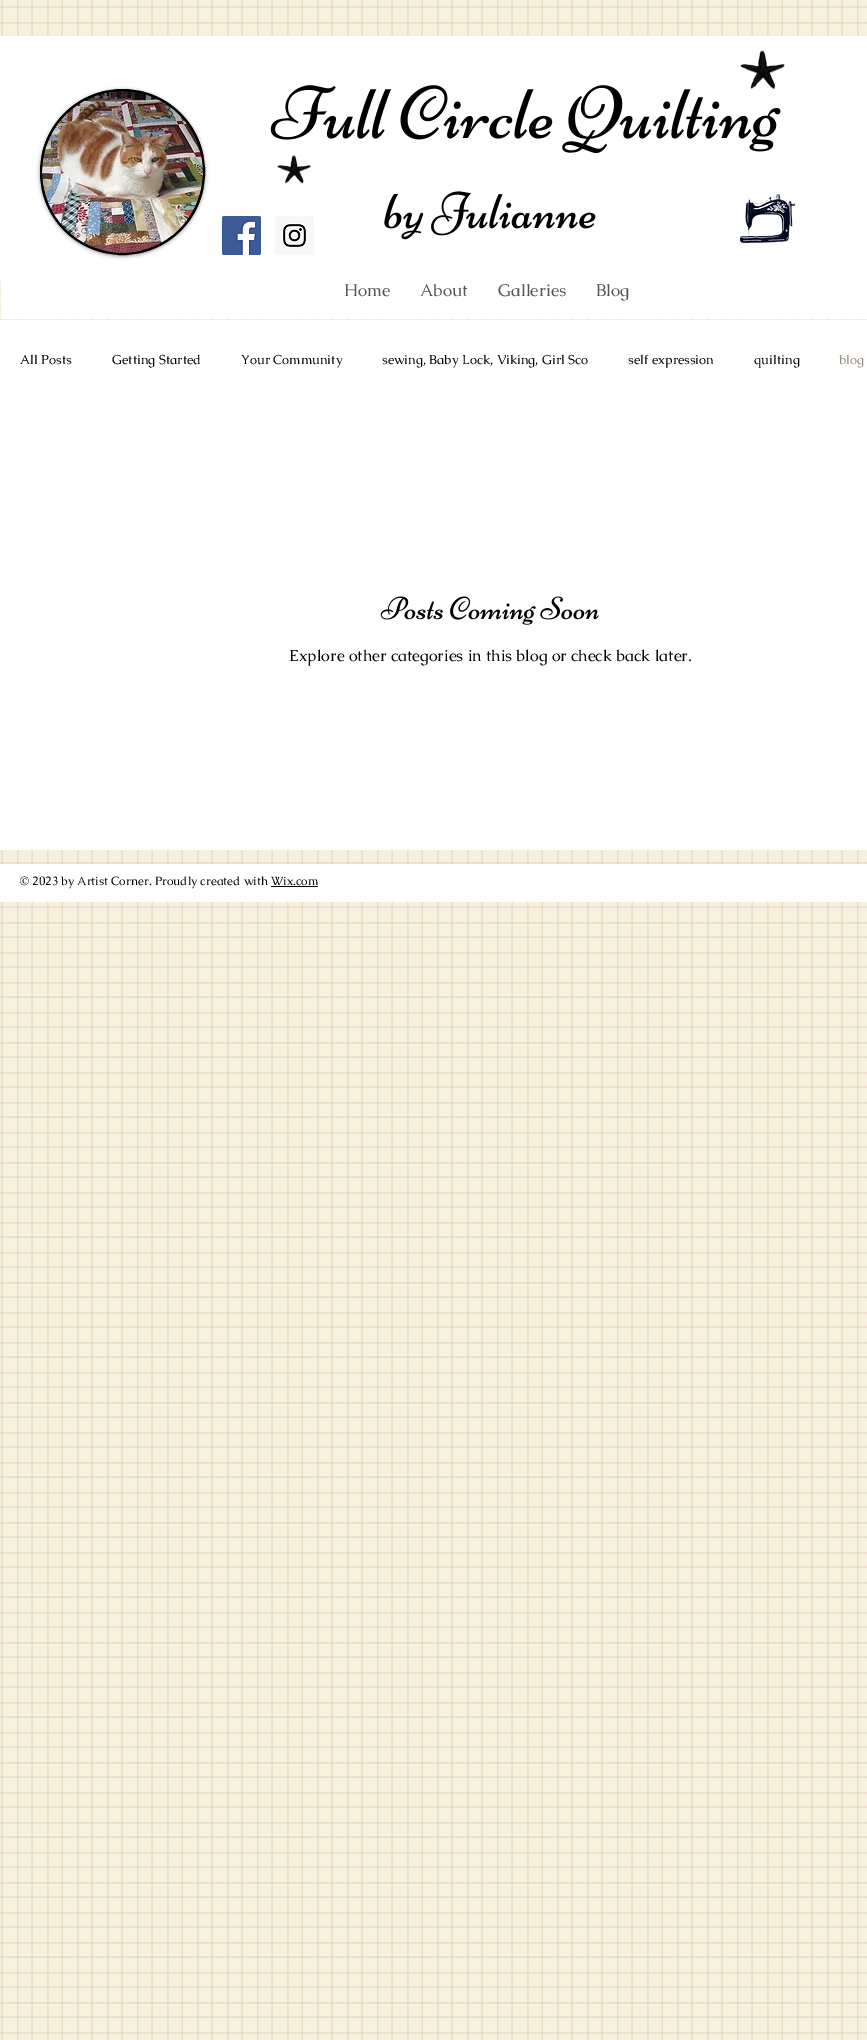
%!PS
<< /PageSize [867 2040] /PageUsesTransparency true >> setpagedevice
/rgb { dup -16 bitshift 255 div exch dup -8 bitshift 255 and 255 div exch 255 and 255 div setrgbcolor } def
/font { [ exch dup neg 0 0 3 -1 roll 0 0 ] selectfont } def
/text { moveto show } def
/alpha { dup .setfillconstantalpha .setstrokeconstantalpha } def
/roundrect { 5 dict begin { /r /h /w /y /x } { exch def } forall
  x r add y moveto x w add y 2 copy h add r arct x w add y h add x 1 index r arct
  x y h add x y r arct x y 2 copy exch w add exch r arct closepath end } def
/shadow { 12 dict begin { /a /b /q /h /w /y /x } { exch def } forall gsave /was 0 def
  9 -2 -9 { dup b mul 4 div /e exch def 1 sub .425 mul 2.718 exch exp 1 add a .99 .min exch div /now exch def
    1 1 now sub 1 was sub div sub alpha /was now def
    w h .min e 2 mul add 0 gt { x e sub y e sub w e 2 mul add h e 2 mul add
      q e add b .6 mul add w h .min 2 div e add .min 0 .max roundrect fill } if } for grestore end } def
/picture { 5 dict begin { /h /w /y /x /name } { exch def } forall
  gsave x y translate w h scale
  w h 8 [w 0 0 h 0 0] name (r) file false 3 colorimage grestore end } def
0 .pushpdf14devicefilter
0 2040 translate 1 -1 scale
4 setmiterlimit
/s1 { /Caudex-Regular 17 font 16#545454 rgb } def
/s2 { /Caudex-Regular 13 font 16#000000 rgb } def
/s3 { /Caudex-Regular 13 font 16#948D78 rgb } def
/s4 { /Caudex-Regular 16 font 16#000000 rgb } def
/s5 { /Caudex-Regular 12 font 16#000000 rgb } def
16#F6F0DF rgb
0 0 867 2040 rectfill
(pic1.raw) 0 0 867 2040 picture
16#FFFFFF rgb
0 36 867 245 rectfill
(pic4.raw) 270 85 511 69 picture
(pic2.raw) 740 50 45 40 picture
16#000000 rgb
40 90 165 166 82.5 2 0.4 shadow
41 90 163 164 81.5 roundrect gsave fill grestore
2 setlinewidth
stroke
(pic3.raw) 42 91 161 162 picture
(pic5.raw) 277 155 34 29 picture
(pic6.raw) 222 216 39 39 picture
(pic7.raw) 275 216 39 39 picture
(pic8.raw) 384 191 212 49 picture
(pic9.raw) 739 194 57 50 picture
16#FFFFFF rgb
1 281 866 38 rectfill
s1
(Home) 344 296 text
(About) 420 296 text
(Galleries) 498 296 text
(Blog) 596 296 text
16#FFFFFF rgb
0 320 867 530 rectfill
s2
(All Posts) 20 364 text
(Getting Started) 112 364 text
(Your Community) 241 364 text
(sewing, Baby Lock, Viking, Girl Sco) 382 364 text
(self expression) 628 364 text
(quilting) 754 364 text
s3
(blog) 839 364 text
(pic10.raw) 380 596 219 29 picture
s4
(Explore other categories in this blog or check back later.) 289 661 text
16#FFFFFF rgb
0 864 867 38 rectfill
s5
(© 2023 by Artist Corner. Proudly created with Wix.com) 20 885 text
271 886 47 1 rectfill
.poppdf14devicefilter showpage
